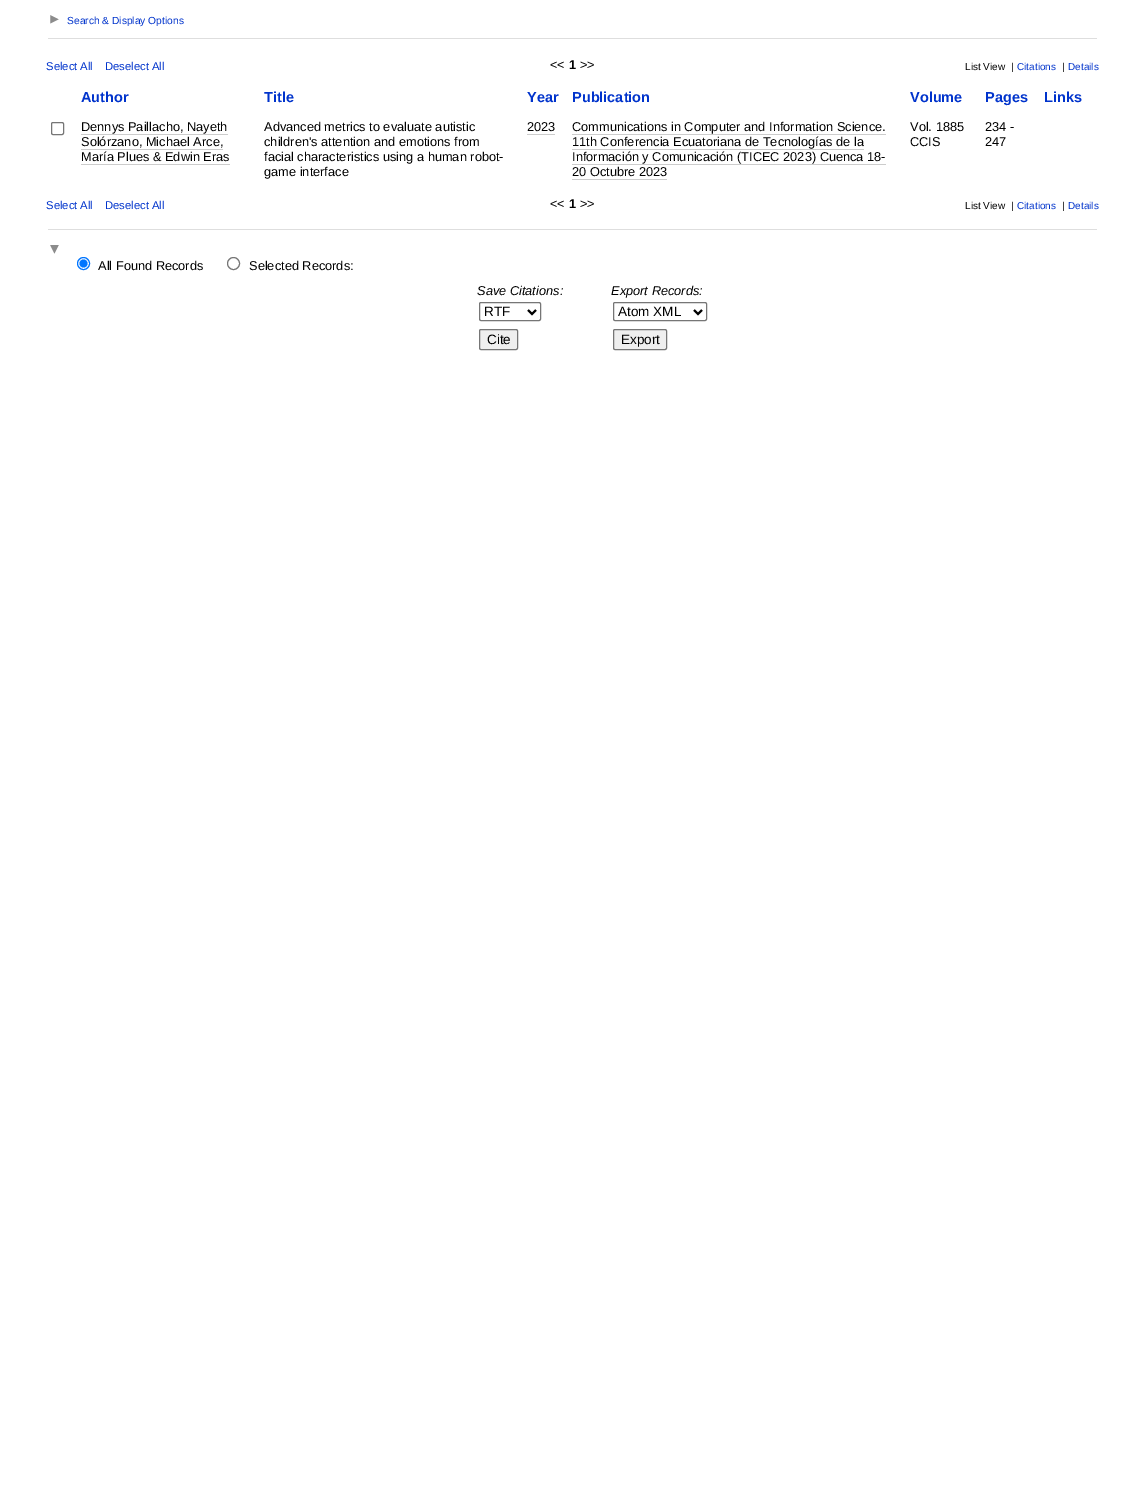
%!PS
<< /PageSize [1145 1488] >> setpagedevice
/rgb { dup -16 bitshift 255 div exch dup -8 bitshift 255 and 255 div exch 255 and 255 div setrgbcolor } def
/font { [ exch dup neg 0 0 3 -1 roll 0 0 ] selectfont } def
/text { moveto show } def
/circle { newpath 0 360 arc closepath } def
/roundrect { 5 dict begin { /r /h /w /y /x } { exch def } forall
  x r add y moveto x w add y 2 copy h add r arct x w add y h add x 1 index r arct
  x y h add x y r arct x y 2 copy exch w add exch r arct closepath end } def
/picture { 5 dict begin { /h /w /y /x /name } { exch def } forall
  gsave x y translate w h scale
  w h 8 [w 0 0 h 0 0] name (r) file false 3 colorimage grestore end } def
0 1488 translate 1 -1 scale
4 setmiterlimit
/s1 { /LiberationSans-Regular 10.25 font 16#0033CC rgb } def
/s2 { /LiberationSans-Regular 11.25 font 16#0033CC rgb } def
/s3 { /LiberationSans-Regular 12.8 font 16#000000 rgb } def
/s4 { /LiberationSans-Bold 12.8 font 16#000000 rgb } def
/s5 { /LiberationSans-Regular 10 font 16#000000 rgb } def
/s6 { /LiberationSans-Regular 10 font 16#0033CC rgb } def
/s7 { /LiberationSans-Bold 14.5 font 16#0033CC rgb } def
/s8 { /LiberationSans-Italic 12.8 font 16#000000 rgb } def
/s9 { /LiberationSans-Regular 13.5 font 16#000000 rgb } def
16#FFFFFF rgb
0 0 1145 1488 rectfill
(pic1.raw) 50 15 9 9 picture
s1
(Search & Display Options) 67 24 text
16#DEDEDE rgb
48 38 1049 1 rectfill
s2
(Select All) 46 70 text
(Deselect All) 105 70 text
s3
(<<) 550 69 text
s4
(1) 569 69 text
s3
(>>) 580 69 text
s5
(List View) 965 70 text
(|) 1011 70 text
s6
(Citations) 1017 70 text
s5
(|) 1062 70 text
s6
(Details) 1068 70 text
s7
(Author) 81 102 text
(Title) 264 102 text
(Year) 527 102 text
(Publication) 572 102 text
(Volume) 910 102 text
(Pages) 985 102 text
(Links) 1044 102 text
16#767676 rgb
51.5 122.5 12 12 1.5 roundrect stroke
s3
(Dennys Paillacho, Nayeth) 81 131 text
16#CCCCCC rgb
81 134 147 1 rectfill
s3
(Solórzano, Michael Arce,) 81 146 text
(María Plues & Edwin Eras) 81 161 text
16#CCCCCC rgb
81 149 142 1 rectfill
81 164 149 1 rectfill
s3
(Advanced metrics to evaluate autistic) 264 131 text
(children's attention and emotions from) 264 146 text
(facial characteristics using a human robot-) 264 161 text
(game interface) 264 176 text
(2023) 527 131 text
16#CCCCCC rgb
527 134 28 1 rectfill
s3
(Communications in Computer and Information Science.) 572 131 text
16#CCCCCC rgb
572 134 314 1 rectfill
s3
(11th Conferencia Ecuatoriana de Tecnologías de la) 572 146 text
16#CCCCCC rgb
572 149 292 1 rectfill
s3
(Información y Comunicación \(TICEC 2023\) Cuenca 18-) 572 161 text
16#CCCCCC rgb
572 164 314 1 rectfill
s3
(20 Octubre 2023) 572 176 text
16#CCCCCC rgb
572 179 95 1 rectfill
s3
(Vol. 1885) 910 131 text
(CCIS) 910 146 text
(234 -) 985 131 text
(247) 985 146 text
s2
(Select All) 46 209 text
(Deselect All) 105 209 text
s3
(<<) 550 208 text
s4
(1) 569 208 text
s3
(>>) 580 208 text
s5
(List View) 965 209 text
(|) 1011 209 text
s6
(Citations) 1017 209 text
s5
(|) 1062 209 text
s6
(Details) 1068 209 text
16#DEDEDE rgb
48 229 1049 1 rectfill
(pic2.raw) 50 245 9 9 picture
16#0075FF rgb
83.5 263.5 6 circle stroke
83.5 263.5 4 circle fill
s3
(All Found Records) 98 270 text
16#767676 rgb
233.5 263.5 6 circle stroke
s3
(Selected Records:) 249 270 text
s8
(Save Citations:) 477 295 text
16#767676 rgb
479.5 302.5 61 18 1.5 roundrect stroke
16#000000 rgb
2 setlinewidth
528 310 moveto 532 314 lineto 536 310 lineto stroke
s9
(RTF) 484 316 text
16#EFEFEF rgb
479.5 329.5 38 20 1.5 roundrect gsave fill grestore
16#767676 rgb
1 setlinewidth
stroke
s9
(Cite) 487 344 text
s8
(Export Records:) 611 295 text
16#767676 rgb
613.5 302.5 93 18 1.5 roundrect stroke
16#000000 rgb
2 setlinewidth
694 310 moveto 698 314 lineto 702 310 lineto stroke
s9
(Atom XML) 618 316 text
16#EFEFEF rgb
613.5 329.5 53 20 1.5 roundrect gsave fill grestore
16#767676 rgb
1 setlinewidth
stroke
s9
(Export) 621 344 text
showpage
